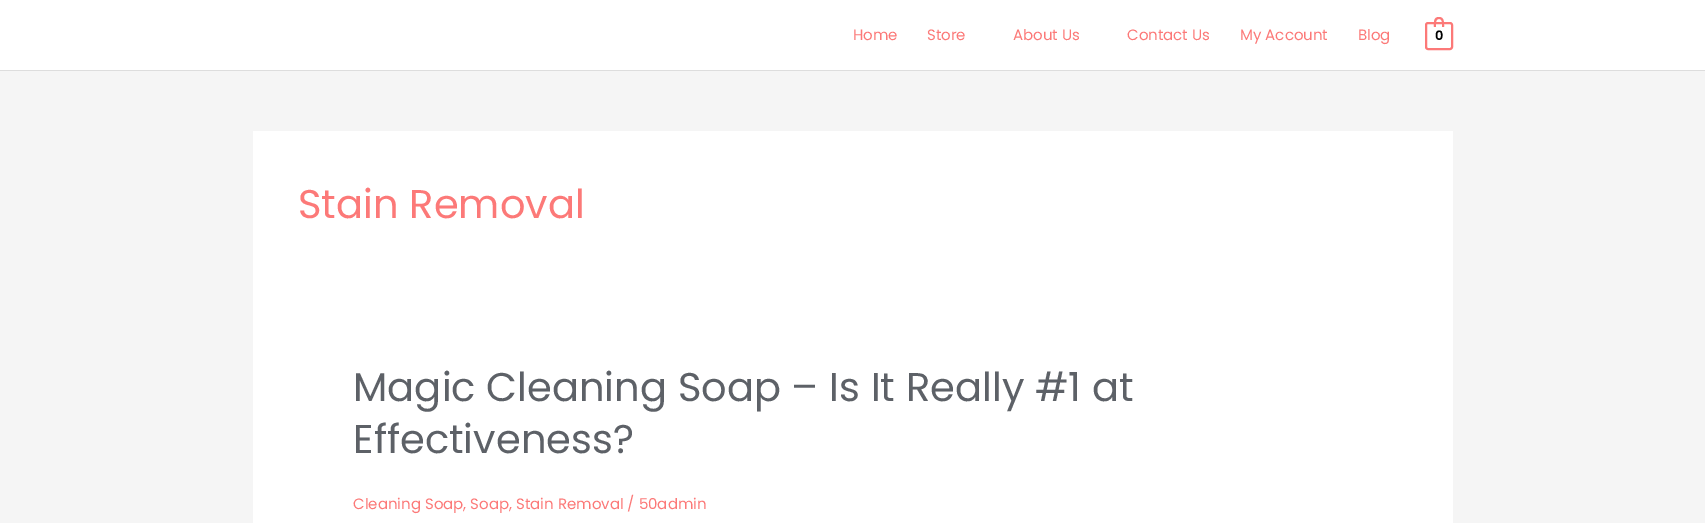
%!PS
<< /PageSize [1705 523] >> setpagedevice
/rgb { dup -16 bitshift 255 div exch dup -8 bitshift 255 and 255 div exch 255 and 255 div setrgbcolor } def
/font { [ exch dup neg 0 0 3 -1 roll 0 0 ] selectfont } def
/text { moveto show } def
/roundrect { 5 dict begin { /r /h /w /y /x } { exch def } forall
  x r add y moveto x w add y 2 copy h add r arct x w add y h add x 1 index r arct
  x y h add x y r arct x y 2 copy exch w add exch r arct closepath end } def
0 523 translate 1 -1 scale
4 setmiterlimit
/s1 { /Poppins-Regular 15 font 16#FC7978 rgb } def
/s2 { /Poppins-SemiBold 13 font 16#000000 rgb } def
/s3 { /Poppins-Regular 40 font 16#FC7978 rgb } def
/s4 { /Poppins-Regular 40 font 16#5D6167 rgb } def
16#F5F5F5 rgb
0 0 1705 523 rectfill
16#FFFFFF rgb
0 0 1705 70 rectfill
16#DDDDDD rgb
0 70 1705 1 rectfill
s1
(Home) 853 40 text
(Store) 927 40 text
(About Us) 1013 40 text
(Contact Us) 1127 40 text
(My Account) 1240 40 text
(Blog) 1358 40 text
2 setlinewidth
1426 23 26 26 2 roundrect stroke
1439 17 moveto 1444.5 17 1444 23 1444 27 curveto 1434 27 lineto 1434 23 1433 17 1439 17 curveto closepath 1439 19 moveto 1443 19 1442 24.5 1442 27 curveto 1436 27 lineto 1436 24.5 1435 19 1439 19 curveto closepath eofill
s2
(0) 1435 40 text
16#FFFFFF rgb
253 131 1200 392 rectfill
s3
(Stain Removal) 298 218 text
s4
(Magic Cleaning Soap – Is It Really #1 at) 353 401 text
(Effectiveness?) 353 453 text
s1
(Cleaning Soap, Soap, Stain Removal / 50admin) 353 509 text
showpage
